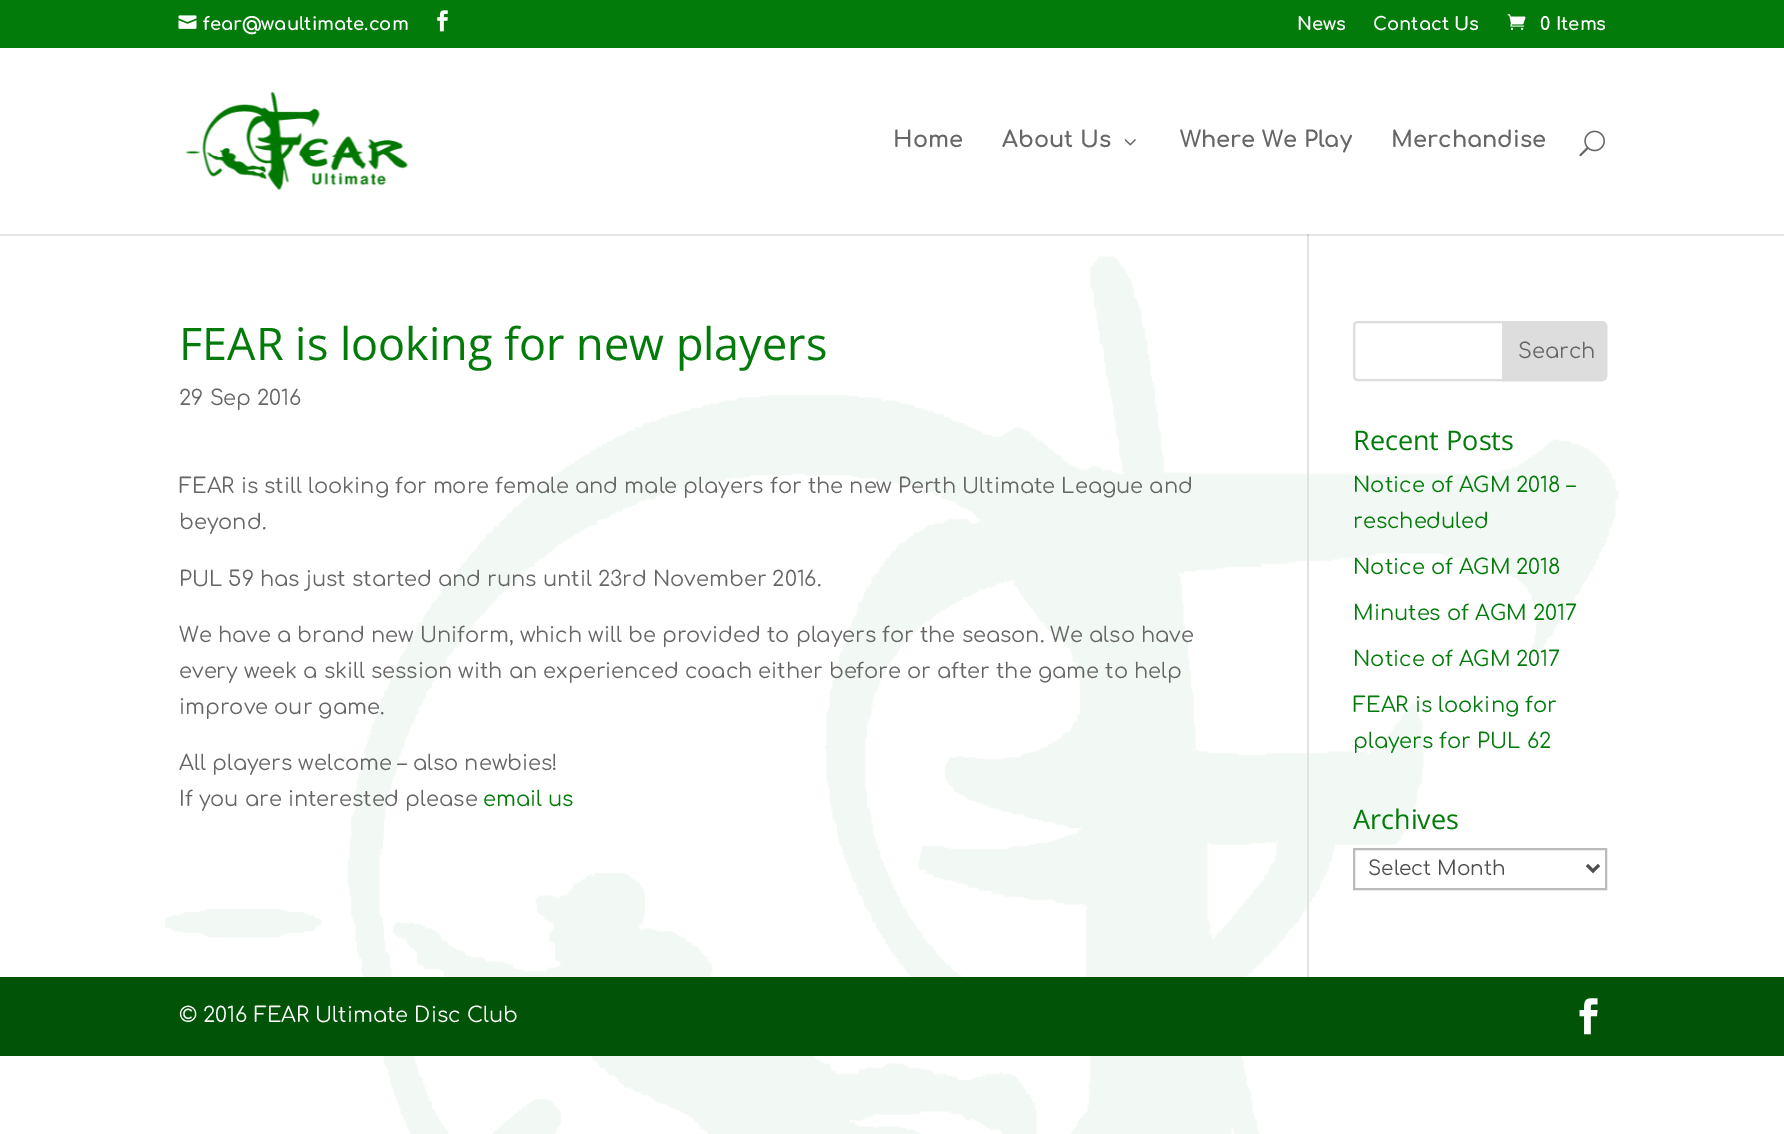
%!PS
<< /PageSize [1784 1134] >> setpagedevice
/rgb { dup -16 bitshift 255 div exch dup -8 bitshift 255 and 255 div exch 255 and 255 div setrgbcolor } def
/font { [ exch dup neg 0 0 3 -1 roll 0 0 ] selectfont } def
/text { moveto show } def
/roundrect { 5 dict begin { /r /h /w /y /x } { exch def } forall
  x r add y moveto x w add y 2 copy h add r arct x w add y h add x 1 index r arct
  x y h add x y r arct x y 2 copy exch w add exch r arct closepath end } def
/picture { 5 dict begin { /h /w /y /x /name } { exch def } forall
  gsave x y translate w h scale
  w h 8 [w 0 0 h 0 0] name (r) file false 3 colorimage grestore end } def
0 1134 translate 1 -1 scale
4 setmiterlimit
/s1 { /Comfortaa-Bold 18 font 16#FFFFFF rgb } def
/s2 { /Comfortaa-Bold 22.5 font 16#666666 rgb } def
/s3 { /OpenSans-Regular 45 font 16#027B0A rgb } def
/s4 { /Comfortaa-Regular 21 font 16#666666 rgb } def
/s5 { /Comfortaa-Regular 21 font 16#027B0A rgb } def
/s6 { /OpenSans-Regular 27 font 16#027B0A rgb } def
/s7 { /Comfortaa-Regular 20 font 16#4E4E4E rgb } def
/s8 { /Comfortaa-Regular 21 font 16#FFFFFF rgb } def
16#FFFFFF rgb
0 0 1784 1134 rectfill
16#E6E6E6 rgb
0 234 1784 2 rectfill
(pic1.raw) 165 256 1454 878 picture
16#027B0A rgb
0 0 1784 48 rectfill
(pic2.raw) 178 15 19 14 picture
s1
(fear@waultimate.com) 203 30 text
(pic3.raw) 437 10 11 22 picture
(News) 1297 30 text
(Contact Us) 1373 30 text
(pic4.raw) 1507 14 19 16 picture
(0 Items) 1540 30 text
(pic5.raw) 185 91 224 99 picture
s2
(Home) 893 147 text
(About Us) 1002 147 text
(pic6.raw) 1124 139 12 7 picture
(Where We Play) 1180 147 text
(Merchandise) 1391 147 text
(pic7.raw) 1579 130 26 27 picture
16#E2E2E2 rgb
1307 234 2 743 rectfill
16#CBCBCB rgb
1307 234 2 2 rectfill
s3
(FEAR is looking for new players) 179 360 text
s4
(29 Sep 2016) 179 405 text
(FEAR is still looking for more female and male players for the new Perth Ultimate League and) 179 493 text
(beyond.) 179 529 text
(PUL 59 has just started and runs until 23rd November 2016.) 179 586 text
(We have a brand new Uniform, which will be provided to players for the season. We also have) 179 642 text
(every week a skill session with an experienced coach either before or after the game to help) 179 678 text
(improve our game.) 179 714 text
(All players welcome – also newbies!) 179 770 text
(If you are interested please) 179 806 text
s5
(email us) 483 806 text
16#DDDDDD rgb
2 setlinewidth
1354 322 252 58 4 roundrect stroke
1503 322 moveto 1602 322 lineto 1604 322 1606 324 1606 326 curveto 1606 376 lineto 1606 378 1604 380 1602 380 curveto 1503 380 lineto closepath gsave fill grestore
stroke
s4
(Search) 1518 358 text
s6
(Recent Posts) 1353 450 text
s5
(Notice of AGM 2018 –) 1353 492 text
(rescheduled) 1353 528 text
(Notice of AGM 2018) 1353 574 text
(Minutes of AGM 2017) 1353 620 text
(Notice of AGM 2017) 1353 666 text
(FEAR is looking for) 1353 712 text
(players for PUL 62) 1353 748 text
s6
(Archives) 1353 829 text
16#BBBBBB rgb
1354 849 252 40 rectstroke
16#4E4E4E rgb
3 setlinewidth
1587 865 moveto 1593 871 lineto 1599 865 lineto stroke
s7
(Select Month) 1368 875 text
16#015407 rgb
0 977 1784 79 rectfill
s8
(© 2016 FEAR Ultimate Disc Club) 179 1022 text
(pic8.raw) 1579 998 19 37 picture
showpage
